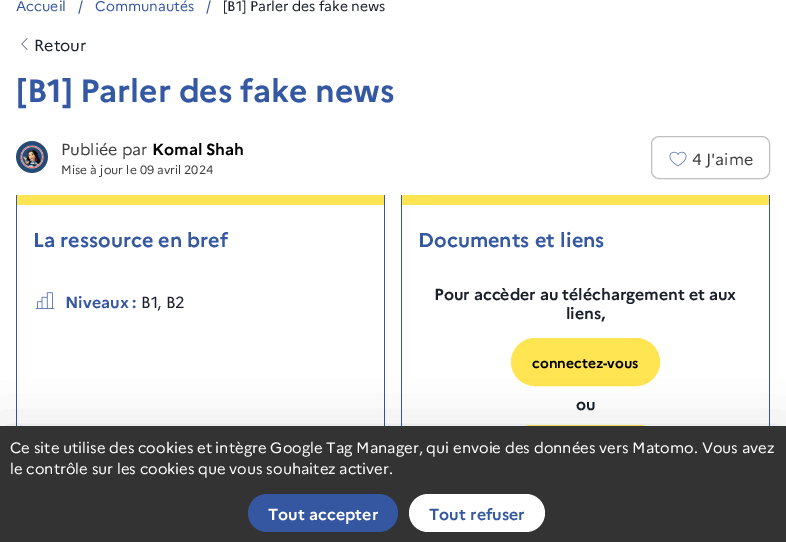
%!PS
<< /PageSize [786 542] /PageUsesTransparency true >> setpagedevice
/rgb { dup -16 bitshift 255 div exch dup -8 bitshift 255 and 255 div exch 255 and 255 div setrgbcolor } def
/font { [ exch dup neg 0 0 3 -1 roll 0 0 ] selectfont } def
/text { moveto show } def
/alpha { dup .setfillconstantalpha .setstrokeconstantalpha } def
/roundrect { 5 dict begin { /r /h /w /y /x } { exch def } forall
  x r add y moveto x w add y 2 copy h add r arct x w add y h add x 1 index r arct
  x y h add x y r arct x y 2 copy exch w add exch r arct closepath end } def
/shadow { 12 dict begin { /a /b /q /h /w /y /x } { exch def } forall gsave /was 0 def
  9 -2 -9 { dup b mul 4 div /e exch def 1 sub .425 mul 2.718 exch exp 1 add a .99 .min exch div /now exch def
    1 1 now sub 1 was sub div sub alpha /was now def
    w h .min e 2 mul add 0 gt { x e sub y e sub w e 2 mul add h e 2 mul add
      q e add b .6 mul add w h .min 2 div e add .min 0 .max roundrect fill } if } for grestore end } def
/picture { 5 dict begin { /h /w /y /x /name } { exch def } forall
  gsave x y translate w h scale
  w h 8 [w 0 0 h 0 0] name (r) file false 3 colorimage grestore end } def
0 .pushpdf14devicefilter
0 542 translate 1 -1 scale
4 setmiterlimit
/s1 { /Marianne-Regular 14 font 16#3558A2 rgb } def
/s2 { /Marianne-Regular 16 font 16#1A202C rgb } def
/s3 { /Marianne-Regular 16 font 16#3F3F3F rgb } def
/s4 { /Marianne-Bold 16 font 16#000000 rgb } def
/s5 { /Marianne-Regular 12 font 16#3F3F3F rgb } def
/s6 { /Marianne-Bold 16 font 16#3558A2 rgb } def
/s7 { /Marianne-Bold 20 font 16#3558A2 rgb } def
/s8 { /Marianne-Bold 16 font 16#1A202C rgb } def
/s9 { /Marianne-Bold 14 font 16#000000 rgb } def
/s10 { /Marianne-Bold 16 font 16#FFFFFF rgb } def
16#FFFFFF rgb
0 0 786 542 rectfill
s1
(Accueil) 16 11 text
(/) 78 11 text
(Communautés) 95 11 text
(/) 206 11 text
16#1A202C rgb
223 11 moveto -0.5 0 32 ([B1] Parler des fake news) widthshow
(pic1.raw) 21 38 7 12 picture
s2
(Retour) 34 51 text
/Marianne-Bold 32 font
16#3558A2 rgb
16 102 moveto -1 0 32 ([B1] Parler des fake news) widthshow
(pic2.raw) 16 141 32 32 picture
s3
(Publiée par) 61 155 text
s4
(Komal) 152 155 text
(Shah) 206 155 text
s5
(Mise à jour le) 61 174 text
140 174 moveto -0.5 0 32 (09 avril 2024) widthshow
16#BFBFBF rgb
651.5 136.5 118 42 7.5 roundrect stroke
(pic3.raw) 669 151 18 16 picture
s3
(4 J'aime) 692 165 text
16#3558A2 rgb
16 195 moveto 385 195 lineto 385 464 lineto 385 481 372 494 355 494 curveto 16 494 lineto closepath 17 195 moveto 384 195 lineto 384 464 lineto 384 480 371 493 355 493 curveto 17 493 lineto closepath eofill
16#FFE552 rgb
17 195 367 10 rectfill
/Marianne-Bold 20 font
16#3558A2 rgb
33 247 moveto -0.5 0 32 (La ressource en bref) widthshow
(pic4.raw) 35 292 20 17 picture
s6
(Niveaux) 65 308 text
(:) 132 308 text
s2
(B1) 141 308 text
(, B2) 157 308 text
16#3558A2 rgb
401 195 moveto 770 195 lineto 770 464 lineto 770 481 757 494 740 494 curveto 401 494 lineto closepath 402 195 moveto 769 195 lineto 769 464 lineto 769 480 756 493 740 493 curveto 402 493 lineto closepath eofill
16#FFE552 rgb
402 195 367 10 rectfill
s7
(Documents et liens) 418 247 text
/Marianne-Bold 16 font
16#1A202C rgb
434 300 moveto -0.5 0 32 (Pour accèder au téléchargement et aux) widthshow
(liens,) 566 319 text
16#FFE552 rgb
511.5 338.5 148 47 23.5 roundrect gsave fill grestore
stroke
s9
(connectez-vous) 532 368 text
s8
(ou) 576 410 text
16#FFE552 rgb
508.5 425.5 154 47 23.5 roundrect stroke
16#000000 rgb
0 446 786 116 0 30 0.25 shadow
16#333333 rgb
0 426 786 116 rectfill
/Marianne-Regular 15 font
16#FFFFFF rgb
10 453 moveto -0.4 0 32 (Ce site utilise des cookies et intègre Google Tag Manager, qui envoie des données vers Matomo. Vous avez) widthshow
10 474 moveto -0.5 0 32 (le contrôle sur les cookies que vous souhaitez activer.) widthshow
16#3557A2 rgb
248 494 150 38 19 roundrect fill
s10
(Tout accepter) 268 520 text
409 494 136 38 19 roundrect fill
s6
(Tout refuser) 429 520 text
.poppdf14devicefilter showpage
